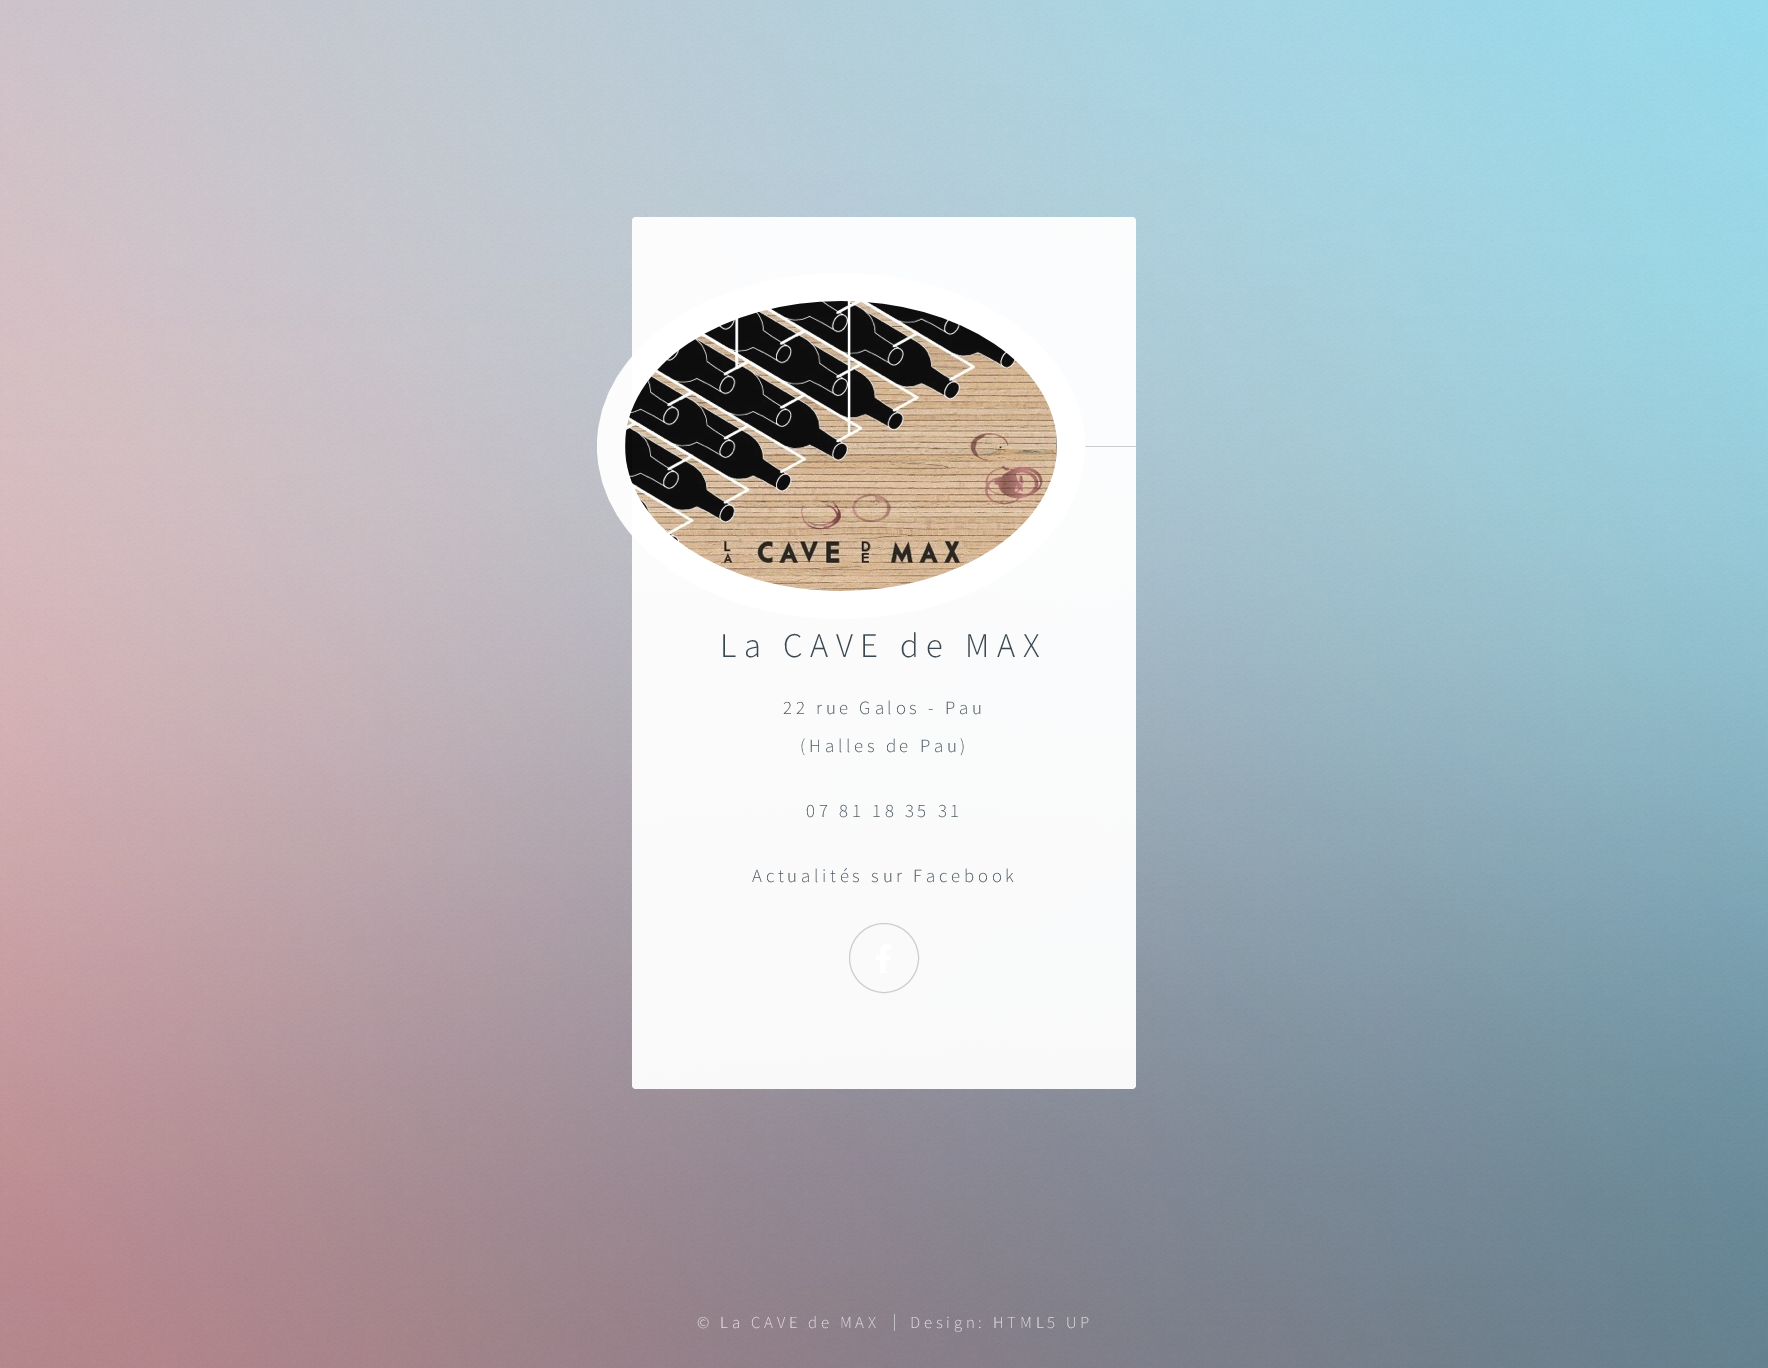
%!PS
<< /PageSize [1768 1368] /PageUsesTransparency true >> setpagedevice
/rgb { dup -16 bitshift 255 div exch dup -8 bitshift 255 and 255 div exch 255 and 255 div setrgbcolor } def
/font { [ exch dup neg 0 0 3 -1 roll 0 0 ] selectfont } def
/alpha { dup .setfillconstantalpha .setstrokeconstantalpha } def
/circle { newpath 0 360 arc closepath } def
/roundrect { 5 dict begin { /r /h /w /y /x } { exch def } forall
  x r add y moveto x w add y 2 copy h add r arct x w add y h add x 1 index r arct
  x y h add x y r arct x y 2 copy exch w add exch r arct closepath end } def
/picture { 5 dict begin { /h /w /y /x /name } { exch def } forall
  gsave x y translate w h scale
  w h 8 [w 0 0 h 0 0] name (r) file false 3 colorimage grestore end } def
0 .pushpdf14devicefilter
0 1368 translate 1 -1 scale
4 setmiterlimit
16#FFFFFF rgb
0 0 1768 1368 rectfill
(pic1.raw) 0 0 1768 1368 picture
0.95 alpha
632 217 504 872 4 roundrect fill
1 alpha
16#CBCED1 rgb
632 446 504 1 rectfill
0.95 alpha
16#FFFFFF rgb
28 setlinewidth
841 287 moveto 968 287 1071 358 1071 446 curveto 1071 534 968 605 841 605 curveto 714 605 611 534 611 446 curveto 611 358 714 287 841 287 curveto closepath stroke
1 alpha
(pic2.raw) 625 301 432 290 picture
/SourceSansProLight-Light 34.5 font
16#3B4850 rgb
720 657 moveto 7.6 0 (La CAVE de MAX) ashow
/SourceSansProLight-Light 18.7 font
16#4A585F rgb
783 714 moveto 3.75 0 (22 rue Galos - Pau) ashow
800 752 moveto 3.75 0 (\(Halles de Pau\)) ashow
806 817 moveto 3.75 0 (07 81 18 35 31) ashow
752 882 moveto 3.75 0 (Actualités sur Facebook) ashow
16#CACED1 rgb
1 setlinewidth
884 958 34.5 circle stroke
(pic3.raw) 876 944 15 29 picture
/SourceSansProLight-Light 16.75 font
16#E3DFE2 rgb
697 1328 moveto 3.75 0 (© La CAVE de MAX) ashow
0.5 alpha
16#FFFFFF rgb
894 1314 1 17 rectfill
1 alpha
16#E3DFE2 rgb
910 1328 moveto 3.75 0 (Design:) ashow
993 1328 moveto 3.75 0 (HTML5 UP) ashow
.poppdf14devicefilter showpage
